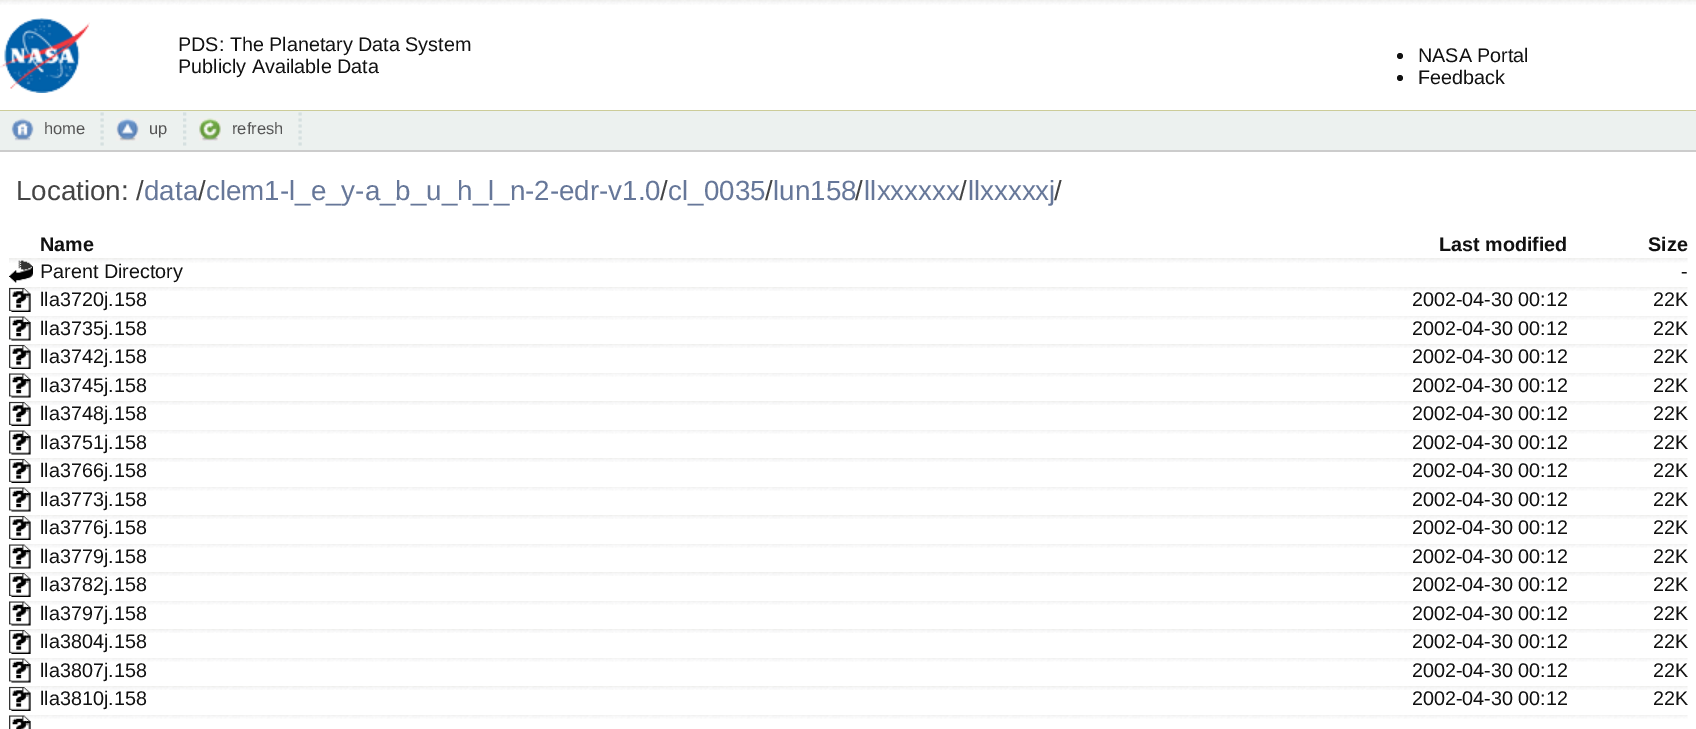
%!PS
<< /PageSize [1696 729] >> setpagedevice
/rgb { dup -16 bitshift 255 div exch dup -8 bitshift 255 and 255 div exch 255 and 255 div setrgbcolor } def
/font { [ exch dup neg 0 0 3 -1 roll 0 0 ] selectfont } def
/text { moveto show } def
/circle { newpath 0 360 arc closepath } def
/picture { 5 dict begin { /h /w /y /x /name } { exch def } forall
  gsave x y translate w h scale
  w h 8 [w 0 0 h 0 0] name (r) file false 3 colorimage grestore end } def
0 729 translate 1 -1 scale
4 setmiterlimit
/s1 { /LiberationSans-Regular 19.75 font 16#111111 rgb } def
/s2 { /LiberationSans-Regular 16.5 font 16#555555 rgb } def
/s3 { /LiberationSans-Regular 27.75 font 16#444444 rgb } def
/s4 { /LiberationSans-Regular 27.75 font 16#667799 rgb } def
/s5 { /LiberationSans-Bold 19.75 font 16#111111 rgb } def
16#FFFFFF rgb
0 0 1696 729 rectfill
(pic1.raw) 0 0 179 5 picture
(pic2.raw) 0 18 90 75 picture
(pic3.raw) 759 0 600 5 picture
(pic4.raw) 178 0 581 5 picture
s1
(PDS: The Planetary Data System) 178 51 text
(Publicly Available Data) 178 73 text
(pic5.raw) 1359 0 337 5 picture
16#CCCC99 rgb
0 110 1696 1 rectfill
16#111111 rgb
1400 56 3 circle fill
(NASA Portal) 1418 62 text
1400 78 3 circle fill
(Feedback) 1418 84 text
16#ECF1EF rgb
0 111 1696 39 rectfill
16#CCCCCC rgb
0 150 1696 2 rectfill
(pic6.raw) 11 118 23 23 picture
s2
(home) 44 134 text
16#D5E0E0 rgb
3 setlinewidth
[3 3] 0 setdash
102 112.5 moveto 102 147 lineto stroke
(pic7.raw) 116 118 23 23 picture
s2
(up) 149 134 text
16#D5E0E0 rgb
184.5 112.5 moveto 184.5 147 lineto stroke
(pic8.raw) 199 118 22 23 picture
s2
(refresh) 232 134 text
16#D5E0E0 rgb
300 112.5 moveto 300 147 lineto stroke
s3
(Location: /) 16 200 text
s4
(data clem1-l_e_y-a_b_u_h_l_n-2-edr-v1.0 cl_0035 lun158 llxxxxxx llxxxxxj) 144 200 text
s3
(/) 198 200 text
(/) 660 200 text
(/) 765 200 text
(/) 855 200 text
(/) 959 200 text
(/) 1054 200 text
s5
(Name) 40 251 text
(Last modified) 1439 251 text
(Size) 1648 251 text
(pic9.raw) 9 258 32 5 picture
(pic10.raw) 9 260 24 23 picture
(pic12.raw) 40 258 1258 5 picture
(pic11.raw) 1297 258 271 5 picture
s1
(Parent Directory) 40 278 text
(pic13.raw) 1567 258 121 5 picture
(-) 1681 278 text
(pic14.raw) 9 287 32 4 picture
(pic15.raw) 9 288 22 24 picture
(pic16.raw) 41 287 1257 4 picture
(lla3720j.158) 40 306 text
(pic17.raw) 1297 287 271 4 picture
(2002-04-30 00:12) 1412 306 text
(pic18.raw) 1567 287 121 4 picture
(22K) 1653 306 text
(pic19.raw) 9 316 32 4 picture
(pic20.raw) 9 316 22 25 picture
(pic21.raw) 40 316 1258 4 picture
(lla3735j.158) 40 335 text
(pic22.raw) 1297 316 271 4 picture
(2002-04-30 00:12) 1412 335 text
(pic23.raw) 1567 316 121 4 picture
(22K) 1653 335 text
(pic14.raw) 9 344 32 4 picture
(pic24.raw) 9 345 22 24 picture
(pic25.raw) 41 344 1257 4 picture
(lla3742j.158) 40 363 text
(pic26.raw) 1297 344 271 4 picture
(2002-04-30 00:12) 1412 363 text
(pic18.raw) 1567 344 121 4 picture
(22K) 1653 363 text
(pic19.raw) 9 373 32 4 picture
(pic20.raw) 9 373 22 25 picture
(pic27.raw) 40 373 1258 4 picture
(lla3745j.158) 40 392 text
(pic28.raw) 1297 373 271 4 picture
(2002-04-30 00:12) 1412 392 text
(pic29.raw) 1567 373 121 4 picture
(22K) 1653 392 text
(pic14.raw) 9 401 32 4 picture
(pic24.raw) 9 402 22 24 picture
(pic30.raw) 41 401 1257 4 picture
(lla3748j.158) 40 420 text
(pic31.raw) 1297 401 271 4 picture
(2002-04-30 00:12) 1412 420 text
(pic32.raw) 1567 401 121 4 picture
(22K) 1653 420 text
(pic19.raw) 9 430 32 4 picture
(pic20.raw) 9 430 22 25 picture
(pic33.raw) 40 430 1258 4 picture
(lla3751j.158) 40 449 text
(pic34.raw) 1297 430 271 4 picture
(2002-04-30 00:12) 1412 449 text
(pic35.raw) 1567 430 121 4 picture
(22K) 1653 449 text
(pic14.raw) 9 458 32 4 picture
(pic24.raw) 9 459 22 24 picture
(pic36.raw) 41 458 1257 4 picture
(lla3766j.158) 40 477 text
(pic37.raw) 1297 458 271 4 picture
(2002-04-30 00:12) 1412 477 text
(pic18.raw) 1567 458 121 4 picture
(22K) 1653 477 text
(pic19.raw) 9 487 32 4 picture
(pic20.raw) 9 487 22 25 picture
(pic38.raw) 40 487 1258 4 picture
(lla3773j.158) 40 506 text
(pic39.raw) 1297 487 271 4 picture
(2002-04-30 00:12) 1412 506 text
(pic40.raw) 1567 487 121 4 picture
(22K) 1653 506 text
(pic14.raw) 9 515 32 4 picture
(pic41.raw) 9 516 22 24 picture
(pic42.raw) 41 515 1257 4 picture
(lla3776j.158) 40 534 text
(pic17.raw) 1297 515 271 4 picture
(2002-04-30 00:12) 1412 534 text
(pic18.raw) 1567 515 121 4 picture
(22K) 1653 534 text
(pic19.raw) 9 544 32 4 picture
(pic20.raw) 9 544 22 25 picture
(pic43.raw) 40 544 1258 4 picture
(lla3779j.158) 40 563 text
(pic44.raw) 1297 544 271 4 picture
(2002-04-30 00:12) 1412 563 text
(pic45.raw) 1567 544 121 4 picture
(22K) 1653 563 text
(pic14.raw) 9 572 32 4 picture
(pic46.raw) 9 573 22 24 picture
(pic47.raw) 41 572 1257 4 picture
(lla3782j.158) 40 591 text
(pic48.raw) 1297 572 271 4 picture
(2002-04-30 00:12) 1412 591 text
(pic18.raw) 1567 572 121 4 picture
(22K) 1653 591 text
(pic19.raw) 9 601 32 4 picture
(pic20.raw) 9 601 22 25 picture
(pic49.raw) 40 601 1258 4 picture
(lla3797j.158) 40 620 text
(pic22.raw) 1297 601 271 4 picture
(2002-04-30 00:12) 1412 620 text
(pic50.raw) 1567 601 121 4 picture
(22K) 1653 620 text
(pic14.raw) 9 629 32 4 picture
(pic24.raw) 9 630 22 24 picture
(pic16.raw) 41 629 1257 4 picture
(lla3804j.158) 40 648 text
(pic17.raw) 1297 629 271 4 picture
(2002-04-30 00:12) 1412 648 text
(pic18.raw) 1567 629 121 4 picture
(22K) 1653 648 text
(pic19.raw) 9 658 32 4 picture
(pic20.raw) 9 658 22 25 picture
(pic51.raw) 40 658 1258 4 picture
(lla3807j.158) 40 677 text
(pic52.raw) 1297 658 271 4 picture
(2002-04-30 00:12) 1412 677 text
(pic53.raw) 1567 658 121 4 picture
(22K) 1653 677 text
(pic14.raw) 9 686 32 4 picture
(pic24.raw) 9 687 22 24 picture
(pic54.raw) 41 686 1257 4 picture
(lla3810j.158) 40 705 text
(pic26.raw) 1297 686 271 4 picture
(2002-04-30 00:12) 1412 705 text
(pic18.raw) 1567 686 121 4 picture
(22K) 1653 705 text
(pic19.raw) 9 715 32 4 picture
(pic55.raw) 9 715 22 14 picture
(pic56.raw) 40 715 1258 4 picture
(pic57.raw) 1297 715 271 4 picture
(pic58.raw) 1567 715 121 4 picture
showpage
